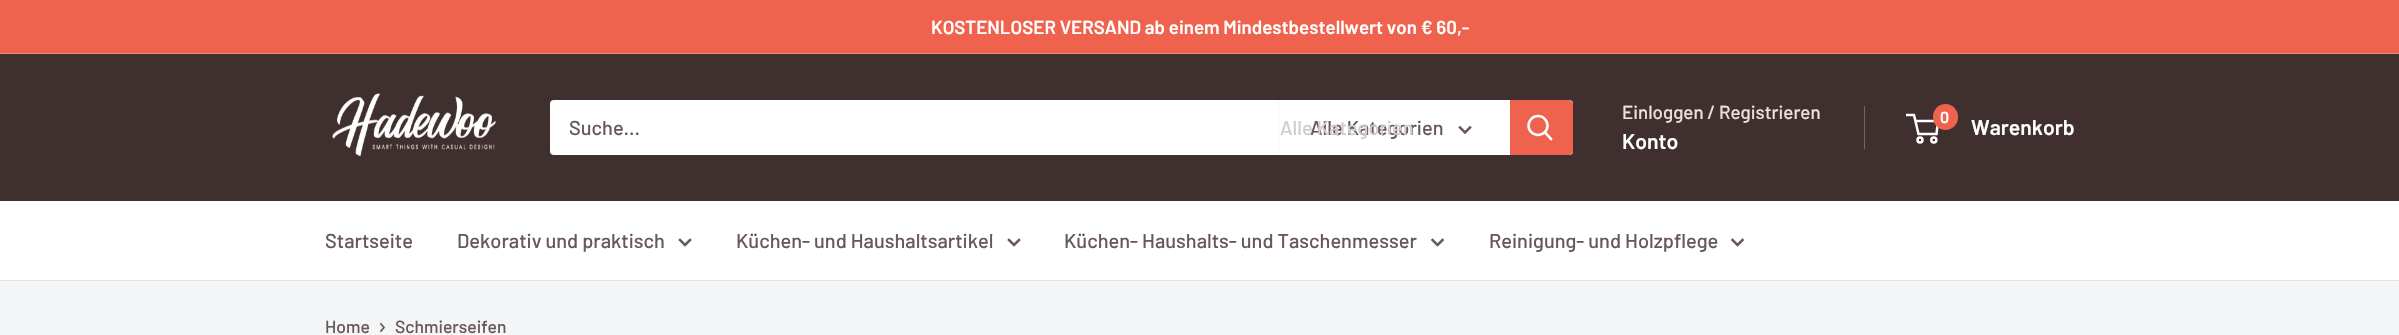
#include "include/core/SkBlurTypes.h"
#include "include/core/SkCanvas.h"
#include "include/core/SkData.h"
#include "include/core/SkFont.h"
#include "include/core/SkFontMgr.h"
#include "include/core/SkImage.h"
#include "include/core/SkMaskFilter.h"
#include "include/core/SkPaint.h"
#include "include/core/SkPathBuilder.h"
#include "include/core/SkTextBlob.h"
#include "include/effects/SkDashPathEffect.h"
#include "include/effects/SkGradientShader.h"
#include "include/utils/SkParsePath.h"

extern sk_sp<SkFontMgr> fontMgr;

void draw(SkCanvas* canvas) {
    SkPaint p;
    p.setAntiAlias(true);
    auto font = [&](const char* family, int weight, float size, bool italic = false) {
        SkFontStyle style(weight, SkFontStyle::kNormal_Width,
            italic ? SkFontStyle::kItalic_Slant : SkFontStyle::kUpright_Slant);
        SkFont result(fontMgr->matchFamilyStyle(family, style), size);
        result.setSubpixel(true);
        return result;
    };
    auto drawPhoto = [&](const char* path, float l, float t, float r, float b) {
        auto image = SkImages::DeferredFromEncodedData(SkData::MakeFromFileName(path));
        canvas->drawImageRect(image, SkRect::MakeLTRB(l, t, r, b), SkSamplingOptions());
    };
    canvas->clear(0xFFF3F5F6);
    p.setColor(0xFFEF634E);
    canvas->drawRect(SkRect::MakeLTRB(0, 0, 2399, 53), p);
    p.setColor(0xFFED8979);
    canvas->drawRect(SkRect::MakeLTRB(0, 53, 2399, 54), p);
    auto font1 = font("Barlow", 600, 18.75f);
    p.setColor(0xFFFFFFFF);
    canvas->drawString("KOSTENLOSER VERSAND ab einem Mindestbestellwert von € 60,-", 931, 34, font1, p);
    p.setColor(0xFF402F2F);
    canvas->drawRect(SkRect::MakeLTRB(0, 54, 2399, 201), p);
    drawPhoto("media/1.png", 332, 93, 496, 157);
    p.setColor(0xFFFFFFFF);
    canvas->drawRoundRect(SkRect::MakeLTRB(550, 100, 1573, 155), 4, 4, p);
    auto font2 = font("Barlow", 500, 20);
    p.setColor(0xFF685858);
    canvas->drawString("Suche...", 569, 135, font2, p);
    p.setColor(0xFFF8F6F5);
    canvas->drawRect(SkRect::MakeLTRB(1278, 100, 1279, 155), p);
    p.setColor(0xFF685858);
    canvas->drawString("Alle Kategorien", 1310, 135, font2, p);
    p.setColor(0xFFD2CECE);
    canvas->drawString("Alle Kategorien", 1280, 135, font2, p);
    p.setStyle(SkPaint::kStroke_Style);
    p.setStrokeWidth(2.5f);
    p.setStrokeCap(SkPaint::kSquare_Cap);
    p.setColor(0xFF685858);
    canvas->drawPath(SkPathBuilder().moveTo(1470, 127.5f).lineTo(1465, 132.5f).lineTo(1460, 127.5f).detach(), p);
    p.setStyle(SkPaint::kFill_Style);
    p.setColor(0xFFEF634E);
    canvas->drawPath(SkPathBuilder().moveTo(1510, 100).lineTo(1569, 100).cubicTo(1571, 100, 1573, 102, 1573, 104).lineTo(1573, 151).cubicTo(1573, 153, 1571, 155, 1569, 155).lineTo(1510, 155).close().detach(), p);
    p.setStyle(SkPaint::kStroke_Style);
    p.setColor(0xFFFFFFFF);
    canvas->drawPath(SkPathBuilder().moveTo(1551, 139).lineTo(1545, 132.5f).detach(), p);
    p.setStrokeCap(SkPaint::kButt_Cap);
    canvas->drawCircle(1538, 125.5f, 9.5f, p);
    auto font3 = font("Barlow", 500, 18.75f);
    p.setStyle(SkPaint::kFill_Style);
    p.setColor(0xFFE9E2DD);
    canvas->drawString("Einloggen / Registrieren", 1622, 119, font3, p);
    p.setColor(0xFF736563);
    canvas->drawRect(SkRect::MakeLTRB(1864, 106, 1865, 149), p);
    auto font4 = font("Barlow", 600, 21.25f);
    p.setColor(0xFFFFFFFF);
    canvas->drawString("Konto", 1622, 149, font4, p);
    p.setStyle(SkPaint::kStroke_Style);
    canvas->drawCircle(1920, 140, 2.5f, p);
    canvas->drawCircle(1933.8f, 140, 2.5f, p);
    canvas->drawPath(SkPathBuilder().moveTo(1915.5f, 121).lineTo(1938, 121).lineTo(1936.5f, 134).lineTo(1918.5f, 134).lineTo(1914, 115).lineTo(1906, 115).detach(), p);
    p.setStyle(SkPaint::kFill_Style);
    p.setColor(0xFFEF634E);
    canvas->drawRoundRect(SkRect::MakeLTRB(1933, 104, 1958, 130), 12.5f, 12.5f, p);
    auto font5 = font("Barlow", 600, 16);
    p.setColor(0xFFFFFFFF);
    canvas->drawString("0", 1940, 123, font5, p);
    canvas->drawString("Warenkorb", 1971, 135, font4, p);
    canvas->drawRect(SkRect::MakeLTRB(0, 201, 2399, 280), p);
    p.setColor(0xFFE1E3E4);
    canvas->drawRect(SkRect::MakeLTRB(0, 280, 2399, 281), p);
    p.setColor(0xFF685858);
    canvas->drawString("Startseite", 325, 248, font2, p);
    canvas->drawString("Dekorativ und praktisch", 457, 248, font2, p);
    p.setStyle(SkPaint::kStroke_Style);
    p.setStrokeCap(SkPaint::kSquare_Cap);
    canvas->drawPath(SkPathBuilder().moveTo(690, 240).lineTo(685, 245).lineTo(680, 240).detach(), p);
    p.setStyle(SkPaint::kFill_Style);
    canvas->drawString("Küchen- und Haushaltsartikel", 736, 248, font2, p);
    p.setStyle(SkPaint::kStroke_Style);
    canvas->drawPath(SkPathBuilder().moveTo(1019, 240).lineTo(1014, 245).lineTo(1009, 240).detach(), p);
    p.setStyle(SkPaint::kFill_Style);
    canvas->drawString("Küchen- Haushalts- und Taschenmesser", 1064, 248, font2, p);
    p.setStyle(SkPaint::kStroke_Style);
    canvas->drawPath(SkPathBuilder().moveTo(1442.5f, 240).lineTo(1437.5f, 245).lineTo(1432.5f, 240).detach(), p);
    p.setStyle(SkPaint::kFill_Style);
    canvas->drawString("Reinigung- und Holzpflege", 1489, 248, font2, p);
    p.setStyle(SkPaint::kStroke_Style);
    canvas->drawPath(SkPathBuilder().moveTo(1742.5f, 240).lineTo(1737.5f, 245).lineTo(1732.5f, 240).detach(), p);
    auto font6 = font("Barlow", 500, 17.5f);
    p.setStyle(SkPaint::kFill_Style);
    canvas->drawString("Home", 325, 333, font6, p);
    p.setStyle(SkPaint::kStroke_Style);
    p.setStrokeWidth(1.7f);
    canvas->drawPath(SkPathBuilder().moveTo(381, 324).lineTo(384, 327.5f).lineTo(381, 331).detach(), p);
    p.setStyle(SkPaint::kFill_Style);
    canvas->drawString("Schmierseifen", 395, 333, font6, p);
}
